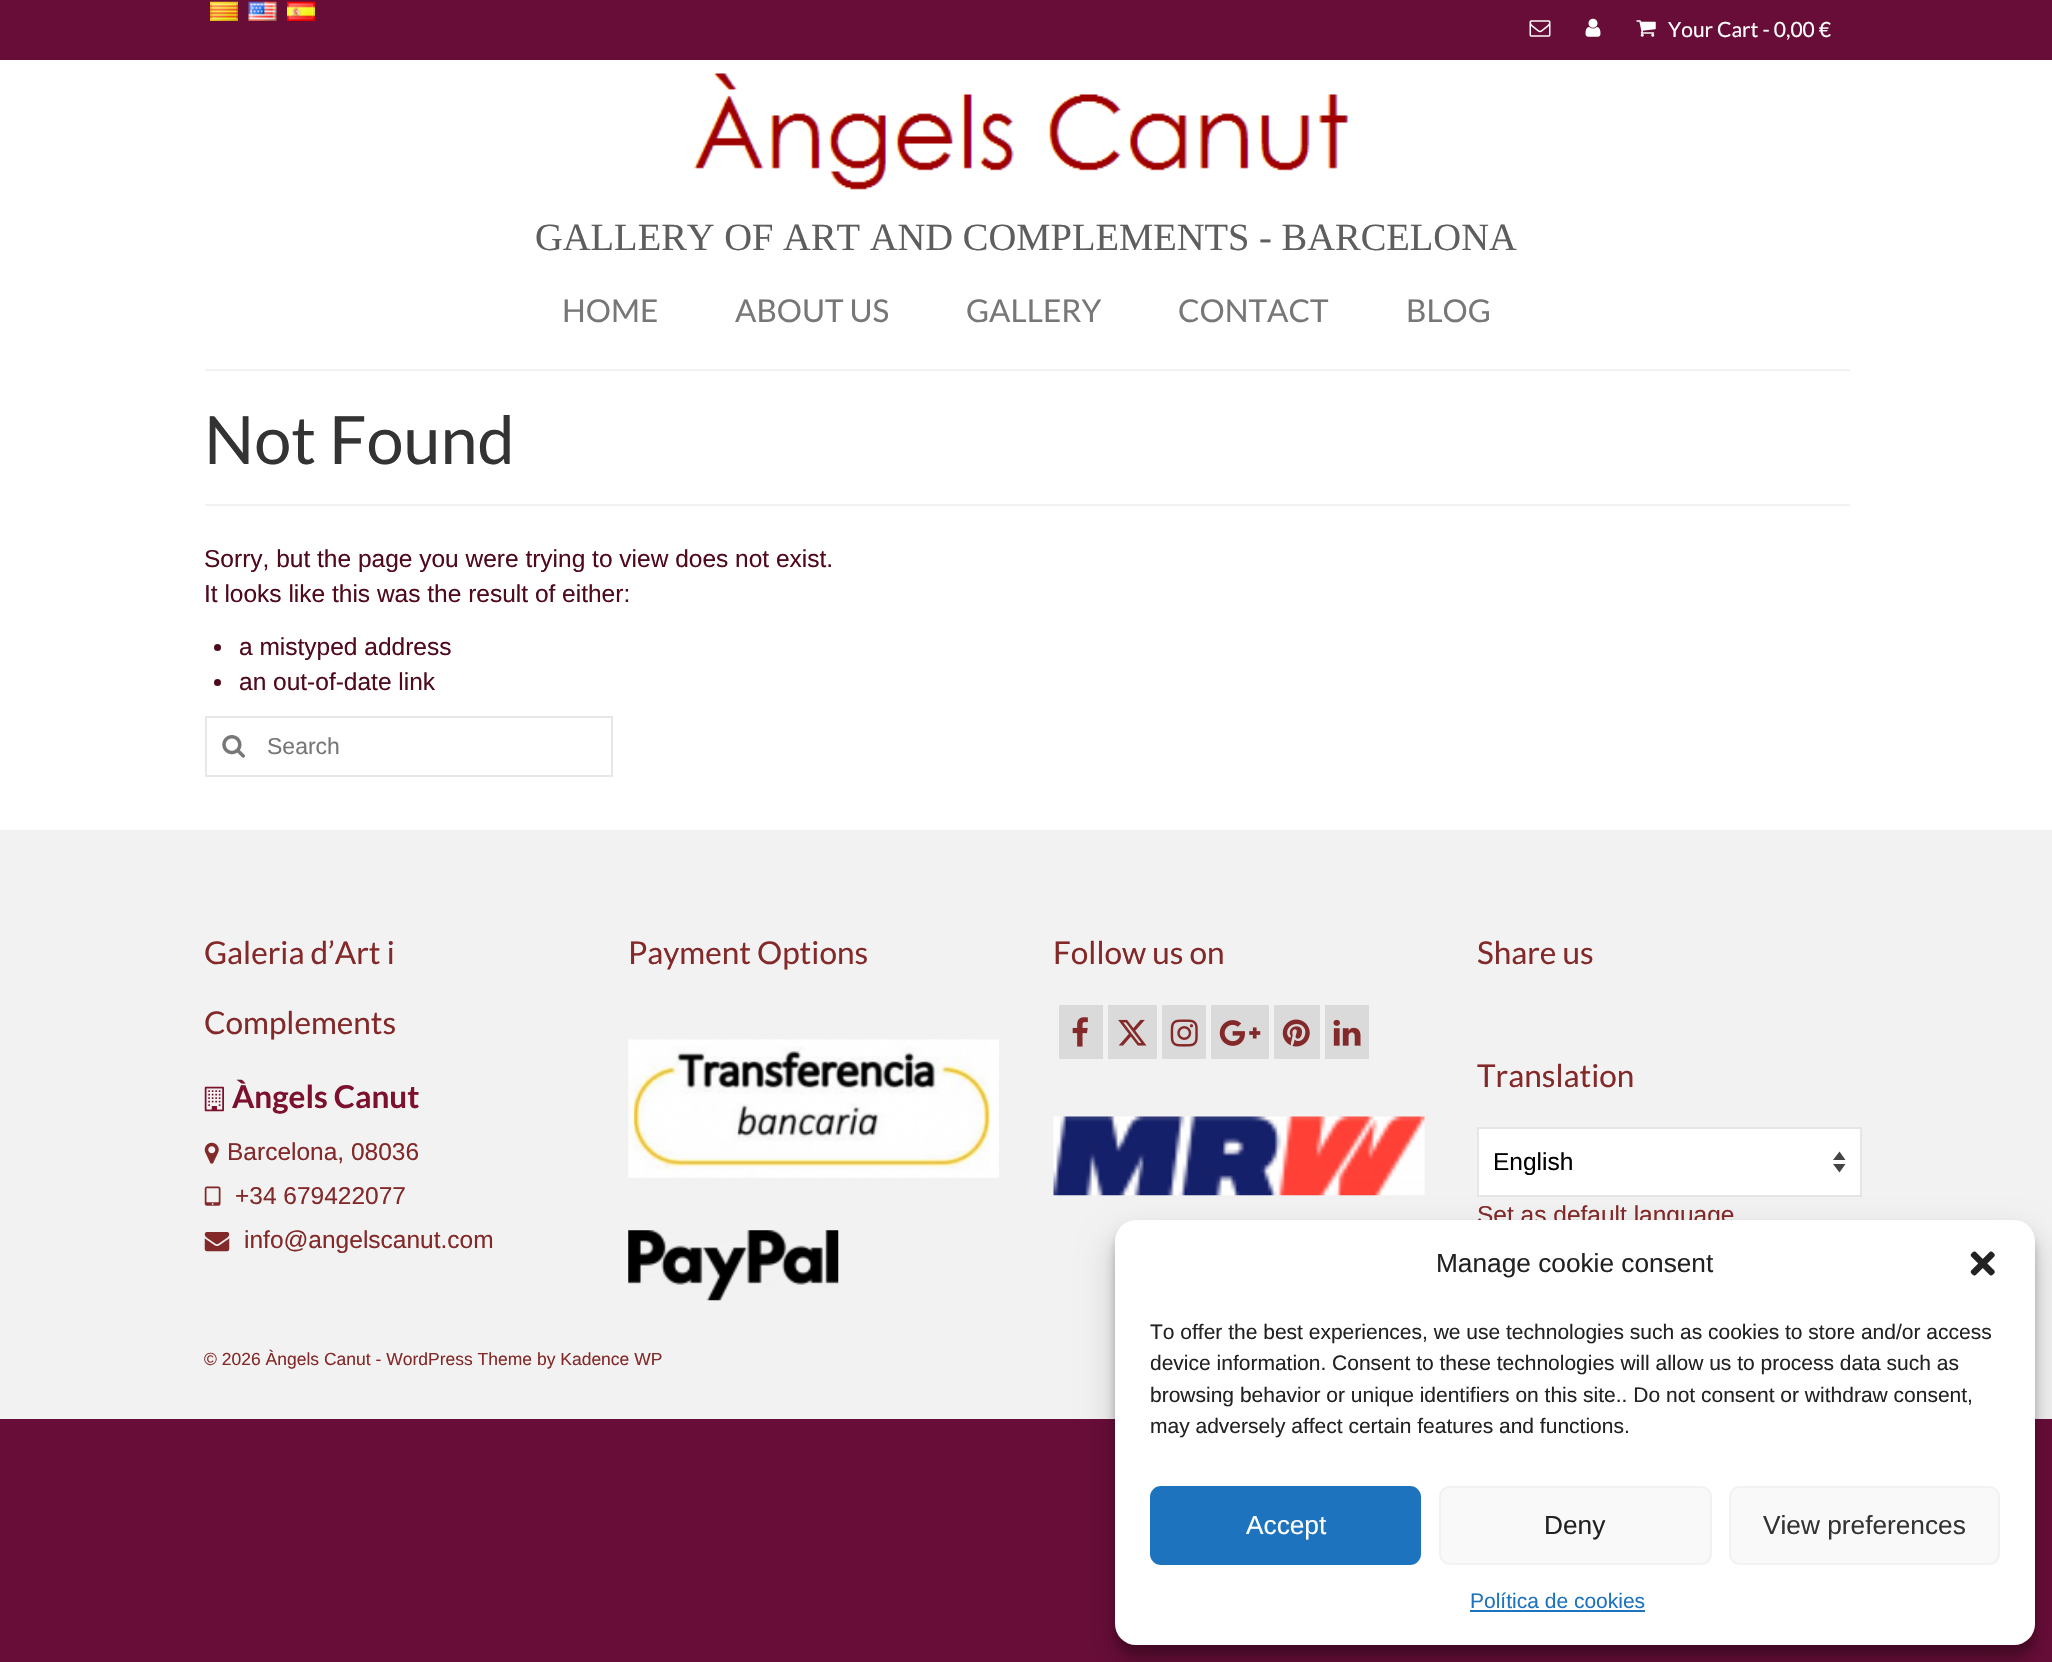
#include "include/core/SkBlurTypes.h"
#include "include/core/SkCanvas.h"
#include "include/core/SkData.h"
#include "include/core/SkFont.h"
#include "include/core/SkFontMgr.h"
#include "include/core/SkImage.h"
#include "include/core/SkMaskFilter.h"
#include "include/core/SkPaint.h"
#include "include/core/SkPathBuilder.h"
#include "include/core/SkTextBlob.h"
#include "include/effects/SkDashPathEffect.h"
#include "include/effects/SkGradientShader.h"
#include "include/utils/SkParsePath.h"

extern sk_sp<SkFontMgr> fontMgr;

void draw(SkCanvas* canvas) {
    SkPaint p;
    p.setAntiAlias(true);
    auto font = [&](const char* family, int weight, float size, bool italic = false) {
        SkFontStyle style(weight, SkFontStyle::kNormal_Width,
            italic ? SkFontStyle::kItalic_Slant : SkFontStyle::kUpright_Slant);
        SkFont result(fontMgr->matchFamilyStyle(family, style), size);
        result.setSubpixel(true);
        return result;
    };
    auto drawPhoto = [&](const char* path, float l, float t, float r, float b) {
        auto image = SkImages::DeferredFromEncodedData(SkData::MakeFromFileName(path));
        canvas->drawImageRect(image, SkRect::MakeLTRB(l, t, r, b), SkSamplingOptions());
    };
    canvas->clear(0xFF680D38);
    p.setColor(0xFFFFFFFF);
    canvas->drawRect(SkRect::MakeLTRB(0, 60, 2052, 830), p);
    drawPhoto("media/1.png", 210, 1, 238, 21);
    drawPhoto("media/2.png", 248, 1, 277, 21);
    drawPhoto("media/3.png", 287, 1, 315, 21);
    drawPhoto("media/4.png", 1529, 20, 1551, 37);
    drawPhoto("media/5.png", 1585, 18, 1601, 37);
    drawPhoto("media/6.png", 1636, 20, 1656, 37);
    auto font1 = font("Lato", 400, 21);
    canvas->drawString("Your Cart - 0,00 €", 1668, 37, font1, p);
    drawPhoto("media/7.png", 694, 73, 1350, 190);
    auto font2 = font("Liberation Serif", 400, 38.5f);
    p.setColor(0xFF5E5E5E);
    canvas->drawString("GALLERY OF ART AND COMPLEMENTS - BARCELONA", 535, 250, font2, p);
    auto font3 = font("Lato", 400, 31.5f);
    p.setColor(0xFF777777);
    {
        const struct { const char* s; float x, y; } items[] = {
            {"HOME", 562, 322},
            {"ABOUT US", 735, 322},
            {"GALLERY", 966, 322},
            {"CONTACT", 1178, 322},
            {"BLOG", 1406, 322},
        };
        for (auto [s, x, y] : items) {
            canvas->drawString(s, x, y, font3, p);
        }
    }
    p.setColor(0xFFF2F2F2);
    canvas->drawRect(SkRect::MakeLTRB(205, 369, 1850, 371), p);
    canvas->drawRect(SkRect::MakeLTRB(205, 504, 1850, 506), p);
    auto font4 = font("Lato", 400, 66.5f);
    p.setColor(0xFF333333);
    canvas->drawString("Not Found", 204, 464, font4, p);
    auto font5 = font("Liberation Sans", 400, 24.5f);
    p.setColor(0xFF4F0A1C);
    canvas->drawString("Sorry, but the page you were trying to view does not exist.", 204, 567, font5, p);
    canvas->drawString("It looks like this was the result of either:", 204, 602, font5, p);
    canvas->drawCircle(217.5f, 647.5f, 3.5f, p);
    canvas->drawString("a mistyped address", 239, 655, font5, p);
    canvas->drawCircle(217.5f, 682.5f, 3.5f, p);
    canvas->drawString("an out-of-date link", 239, 690, font5, p);
    p.setStyle(SkPaint::kStroke_Style);
    p.setStrokeWidth(2);
    p.setColor(0xFFE7E7E7);
    canvas->drawRect(SkRect::MakeLTRB(206, 717, 612, 776), p);
    drawPhoto("media/8.png", 222, 735, 245, 758);
    auto font6 = font("Liberation Sans", 400, 23);
    p.setStyle(SkPaint::kFill_Style);
    p.setColor(0xFF777777);
    canvas->drawString("Search", 267, 754, font6, p);
    p.setColor(0xFFF2F2F2);
    canvas->drawRect(SkRect::MakeLTRB(0, 830, 2052, 1419), p);
    p.setColor(0xFF842929);
    canvas->drawString("Galeria d’Art i", 204, 964, font3, p);
    canvas->drawString("Complements", 204, 1034, font3, p);
    drawPhoto("media/9.png", 204, 1086, 224, 1112);
    auto font7 = font("Lato", 700, 31.5f);
    p.setColor(0xFF7C102D);
    canvas->drawString("Àngels Canut", 232, 1108, font7, p);
    drawPhoto("media/10.png", 204, 1142, 219, 1164);
    p.setColor(0xFF842929);
    canvas->drawString("Barcelona, 08036", 227, 1160, font5, p);
    drawPhoto("media/11.png", 204, 1186, 221, 1206);
    canvas->drawString("+34 679422077", 235, 1204, font5, p);
    drawPhoto("media/12.png", 204, 1232, 230, 1252);
    canvas->drawString("info@angelscanut.com", 244, 1248, font5, p);
    canvas->drawString("Payment Options", 628, 964, font3, p);
    drawPhoto("media/13.png", 628, 1039, 999, 1178);
    drawPhoto("media/14.png", 628, 1230, 839, 1301);
    canvas->drawString("Follow us on", 1053, 964, font3, p);
    p.setColor(0xFFDADADA);
    canvas->drawRect(SkRect::MakeLTRB(1059, 1005, 1103, 1059), p);
    drawPhoto("media/15.png", 1072, 1017, 1088, 1047);
    canvas->drawRect(SkRect::MakeLTRB(1108, 1005, 1157, 1059), p);
    drawPhoto("media/16.png", 1118, 1019, 1147, 1046);
    canvas->drawRect(SkRect::MakeLTRB(1162, 1005, 1206, 1059), p);
    drawPhoto("media/17.png", 1170, 1019, 1198, 1047);
    canvas->drawRect(SkRect::MakeLTRB(1211, 1005, 1269, 1059), p);
    drawPhoto("media/18.png", 1219, 1020, 1261, 1046);
    canvas->drawRect(SkRect::MakeLTRB(1274, 1005, 1320, 1059), p);
    drawPhoto("media/19.png", 1282, 1019, 1310, 1047);
    canvas->drawRect(SkRect::MakeLTRB(1325, 1005, 1369, 1059), p);
    drawPhoto("media/20.png", 1333, 1019, 1361, 1046);
    drawPhoto("media/21.png", 1053, 1116, 1425, 1196);
    p.setColor(0xFF842929);
    canvas->drawString("Share us", 1477, 964, font3, p);
    canvas->drawString("Translation", 1477, 1087, font3, p);
    p.setColor(0xFFFFFFFF);
    canvas->drawRect(SkRect::MakeLTRB(1479, 1129, 1860, 1195), p);
    p.setColor(0xFF444444);
    canvas->drawPath(SkPathBuilder().moveTo(1833, 1160).lineTo(1839.5f, 1151.5f).lineTo(1845.5f, 1160).close().moveTo(1845.5f, 1164).lineTo(1839.5f, 1172.5f).lineTo(1833, 1164).close().detach(), p);
    p.setStyle(SkPaint::kStroke_Style);
    p.setColor(0xFFE6E6E6);
    canvas->drawRect(SkRect::MakeLTRB(1478, 1128, 1861, 1196), p);
    p.setStyle(SkPaint::kFill_Style);
    p.setColor(0xFF000000);
    canvas->drawString("English", 1493, 1170, font5, p);
    p.setColor(0xFF842929);
    canvas->drawString("Set as default language", 1477, 1223, font5, p);
    auto font8 = font("Liberation Sans", 400, 17.5f);
    canvas->drawString("© 2026 Àngels Canut - WordPress Theme by Kadence WP", 204, 1365, font8, p);
    p.setColor(0x3B000000);
    p.setMaskFilter(SkMaskFilter::MakeBlur(kNormal_SkBlurStyle, 5));
    canvas->drawRoundRect(SkRect::MakeLTRB(1115, 1230, 2035, 1656), 21, 21, p);
    p.setMaskFilter(nullptr);
    p.setColor(0x30000000);
    p.setMaskFilter(SkMaskFilter::MakeBlur(kNormal_SkBlurStyle, 17.5f));
    canvas->drawRoundRect(SkRect::MakeLTRB(1115, 1237, 2035, 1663), 21, 21, p);
    p.setMaskFilter(nullptr);
    p.setColor(0xFFFFFFFF);
    canvas->drawRoundRect(SkRect::MakeLTRB(1115, 1220, 2035, 1645), 21, 21, p);
    auto font9 = font("Liberation Sans", 400, 26.25f);
    p.setColor(0xFF222222);
    canvas->drawString("Manage cookie consent", 1436, 1272, font9, p);
    drawPhoto("media/22.png", 1970, 1251, 1995, 1276);
    auto font10 = font("Liberation Sans", 400, 21);
    {
        const struct { const char* s; float x, y; } items[] = {
            {"To offer the best experiences, we use technologies such as cookies to store and/or access", 1150, 1339},
            {"device information. Consent to these technologies will allow us to process data such as", 1150, 1370},
            {"browsing behavior or unique identifiers on this site.. Do not consent or withdraw consent,", 1150, 1402},
            {"may adversely affect certain features and functions.", 1150, 1433},
        };
        for (auto [s, x, y] : items) {
            canvas->drawString(s, x, y, font10, p);
        }
    }
    p.setColor(0xFF1E73BE);
    canvas->drawRoundRect(SkRect::MakeLTRB(1151, 1487, 1420, 1564), 10, 10, p);
    p.setStyle(SkPaint::kStroke_Style);
    canvas->drawRoundRect(SkRect::MakeLTRB(1151, 1487, 1420, 1564), 10, 10, p);
    p.setStyle(SkPaint::kFill_Style);
    p.setColor(0xFFFFFFFF);
    canvas->drawString("Accept", 1246, 1534, font9, p);
    p.setColor(0xFFF9F9F9);
    canvas->drawRoundRect(SkRect::MakeLTRB(1440, 1487, 1711, 1564), 10, 10, p);
    p.setStyle(SkPaint::kStroke_Style);
    p.setColor(0xFFF2F2F2);
    canvas->drawRoundRect(SkRect::MakeLTRB(1440, 1487, 1711, 1564), 10, 10, p);
    p.setStyle(SkPaint::kFill_Style);
    p.setColor(0xFF222222);
    canvas->drawString("Deny", 1544, 1534, font9, p);
    p.setColor(0xFFF9F9F9);
    canvas->drawRoundRect(SkRect::MakeLTRB(1730, 1487, 1999, 1564), 10, 10, p);
    p.setStyle(SkPaint::kStroke_Style);
    p.setColor(0xFFF2F2F2);
    canvas->drawRoundRect(SkRect::MakeLTRB(1730, 1487, 1999, 1564), 10, 10, p);
    p.setStyle(SkPaint::kFill_Style);
    p.setColor(0xFF333333);
    canvas->drawString("View preferences", 1763, 1534, font9, p);
    p.setColor(0xFF1E73BE);
    canvas->drawString("Política de cookies", 1470, 1608, font10, p);
    canvas->drawRect(SkRect::MakeLTRB(1470, 1610, 1645, 1612), p);
}
